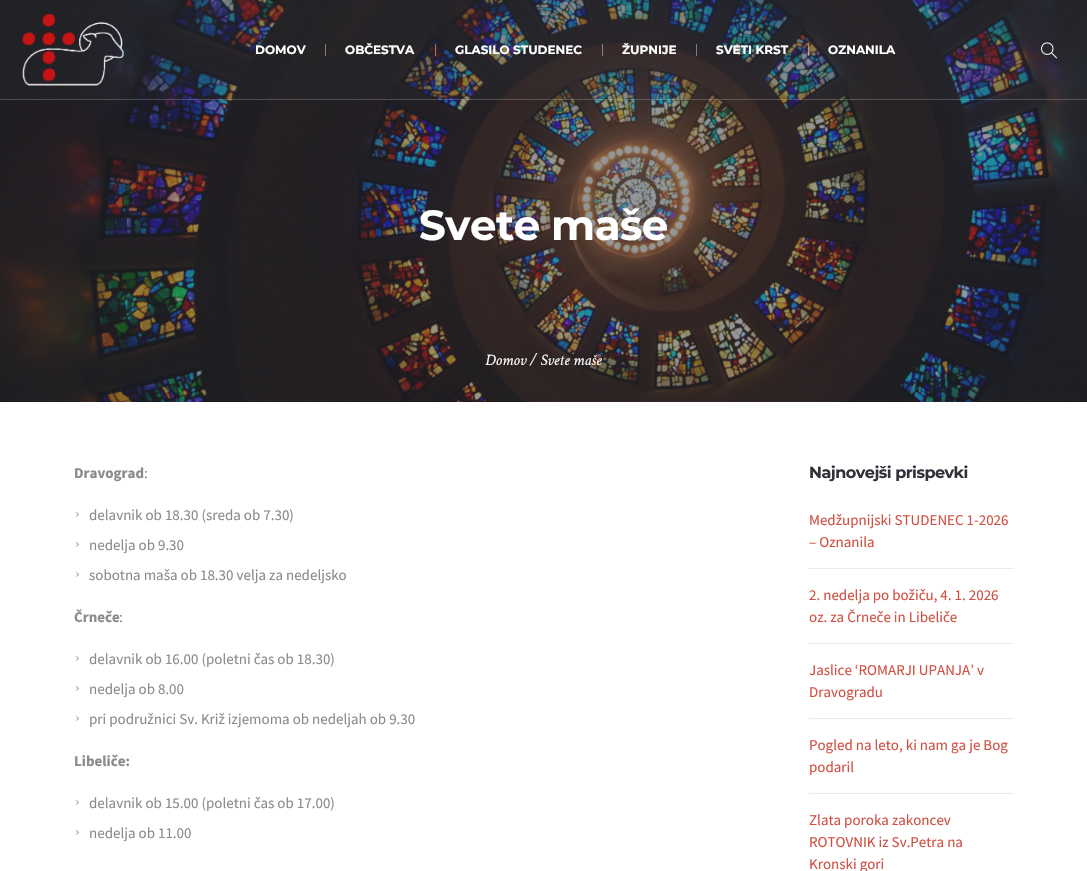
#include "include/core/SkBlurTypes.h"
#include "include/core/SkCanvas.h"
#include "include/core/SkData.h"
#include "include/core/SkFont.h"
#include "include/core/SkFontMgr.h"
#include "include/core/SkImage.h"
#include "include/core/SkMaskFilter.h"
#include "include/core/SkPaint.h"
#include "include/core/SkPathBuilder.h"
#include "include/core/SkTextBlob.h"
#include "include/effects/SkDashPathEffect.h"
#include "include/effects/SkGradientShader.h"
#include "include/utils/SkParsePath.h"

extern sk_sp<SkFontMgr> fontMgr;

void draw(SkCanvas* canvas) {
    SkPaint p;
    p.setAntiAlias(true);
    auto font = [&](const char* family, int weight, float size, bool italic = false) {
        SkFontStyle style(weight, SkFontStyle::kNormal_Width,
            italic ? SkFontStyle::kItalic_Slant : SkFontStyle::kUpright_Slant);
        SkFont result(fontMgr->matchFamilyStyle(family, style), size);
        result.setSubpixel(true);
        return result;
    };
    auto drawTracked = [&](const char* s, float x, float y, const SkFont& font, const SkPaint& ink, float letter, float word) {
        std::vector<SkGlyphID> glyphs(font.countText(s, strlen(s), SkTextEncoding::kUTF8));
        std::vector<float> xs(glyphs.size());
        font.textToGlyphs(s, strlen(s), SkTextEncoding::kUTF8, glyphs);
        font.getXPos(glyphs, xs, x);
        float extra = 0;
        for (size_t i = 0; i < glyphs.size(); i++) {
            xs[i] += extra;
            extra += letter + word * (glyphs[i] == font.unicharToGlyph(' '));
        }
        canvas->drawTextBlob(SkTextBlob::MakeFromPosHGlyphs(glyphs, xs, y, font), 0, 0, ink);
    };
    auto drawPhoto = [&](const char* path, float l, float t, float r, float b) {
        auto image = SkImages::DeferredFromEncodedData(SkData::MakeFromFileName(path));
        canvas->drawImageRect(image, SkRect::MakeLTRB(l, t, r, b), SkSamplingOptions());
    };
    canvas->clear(0xFFFFFFFF);
    drawPhoto("media/3.png", 0, 0, 1087, 402);
    p.setColor(0x2631333B);
    canvas->drawRect(SkRect::MakeLTRB(0, 0, 1087, 100), p);
    p.setColor(0x33FFFFFF);
    canvas->drawRect(SkRect::MakeLTRB(0, 99, 1087, 100), p);
    drawPhoto("media/1.png", 22, 13, 124, 86);
    auto font1 = font("Montserrat", 700, 12);
    p.setColor(0xFFFFFFFF);
    canvas->drawString("DOMOV", 255, 54, font1, p);
    p.setColor(0xFF7D7B7D);
    canvas->drawRect(SkRect::MakeLTRB(325, 44, 326, 56), p);
    p.setColor(0xFFFFFFFF);
    canvas->drawString("OBČESTVA", 345, 54, font1, p);
    p.setColor(0x66FFFFFF);
    canvas->drawRect(SkRect::MakeLTRB(435, 44, 436, 56), p);
    p.setColor(0xFFFFFFFF);
    canvas->drawString("GLASILO STUDENEC", 455, 54, font1, p);
    p.setColor(0x66FFFFFF);
    canvas->drawRect(SkRect::MakeLTRB(602, 44, 603, 56), p);
    p.setColor(0xFFFFFFFF);
    canvas->drawString("ŽUPNIJE", 622, 54, font1, p);
    p.setColor(0x66FFFFFF);
    canvas->drawRect(SkRect::MakeLTRB(696, 44, 697, 56), p);
    p.setColor(0xFFFFFFFF);
    canvas->drawString("SVETI KRST", 716, 54, font1, p);
    p.setColor(0x66FFFFFF);
    canvas->drawRect(SkRect::MakeLTRB(808, 44, 809, 56), p);
    p.setColor(0xFFFFFFFF);
    canvas->drawString("OZNANILA", 828, 54, font1, p);
    drawPhoto("media/2.png", 1041, 42, 1057, 59);
    auto font2 = font("Montserrat", 700, 42);
    drawTracked("Svete maše", 419, 240, font2, p, -0.5f, 0);
    auto font3 = font("Crimson Text", 400, 16, true);
    canvas->drawString("Domov / Svete maše", 485, 365, font3, p);
    auto font4 = font("Source Sans Pro", 700, 15);
    p.setColor(0xFF8B8B8B);
    canvas->drawString("Dravograd", 74, 478, font4, p);
    auto font5 = font("Source Sans Pro", 400, 15);
    canvas->drawString(":", 144, 478, font5, p);
    drawPhoto("media/4.png", 76, 512, 79, 517);
    canvas->drawString("delavnik ob 18.30 (sreda ob 7.30)", 89, 520, font5, p);
    drawPhoto("media/4.png", 76, 542, 79, 547);
    canvas->drawString("nedelja ob 9.30", 89, 550, font5, p);
    drawPhoto("media/4.png", 76, 572, 79, 577);
    canvas->drawString("sobotna maša ob 18.30 velja za nedeljsko", 89, 580, font5, p);
    canvas->drawString("Črneče", 74, 622, font4, p);
    canvas->drawString(":", 119, 622, font5, p);
    drawPhoto("media/4.png", 76, 656, 79, 661);
    canvas->drawString("delavnik ob 16.00 (poletni čas ob 18.30)", 89, 664, font5, p);
    drawPhoto("media/4.png", 76, 686, 79, 691);
    canvas->drawString("nedelja ob 8.00", 89, 694, font5, p);
    drawPhoto("media/4.png", 76, 716, 79, 721);
    canvas->drawString("pri podružnici Sv. Križ izjemoma ob nedeljah ob 9.30", 89, 724, font5, p);
    canvas->drawString("Libeliče:", 74, 766, font4, p);
    drawPhoto("media/4.png", 76, 800, 79, 805);
    canvas->drawString("delavnik ob 15.00 (poletni čas ob 17.00)", 89, 808, font5, p);
    drawPhoto("media/4.png", 76, 830, 79, 835);
    canvas->drawString("nedelja ob 11.00", 89, 838, font5, p);
    auto font6 = font("Montserrat", 700, 16);
    p.setColor(0xFF31333B);
    drawTracked("Najnovejši prispevki", 809, 478, font6, p, -0.5f, 0);
    p.setColor(0xFFD14F42);
    canvas->drawString("Medžupnijski STUDENEC 1-2026", 809, 525, font5, p);
    canvas->drawString("– Oznanila", 809, 547, font5, p);
    p.setColor(0xFFEAEAEA);
    canvas->drawRect(SkRect::MakeLTRB(809, 568, 1014, 569), p);
    p.setColor(0xFFD14F42);
    canvas->drawString("2. nedelja po božiču, 4. 1. 2026", 809, 600, font5, p);
    canvas->drawString("oz. za Črneče in Libeliče", 809, 622, font5, p);
    p.setColor(0xFFEAEAEA);
    canvas->drawRect(SkRect::MakeLTRB(809, 643, 1014, 644), p);
    p.setColor(0xFFD14F42);
    canvas->drawString("Jaslice ‘ROMARJI UPANJA’ v", 809, 675, font5, p);
    canvas->drawString("Dravogradu", 809, 697, font5, p);
    p.setColor(0xFFEAEAEA);
    canvas->drawRect(SkRect::MakeLTRB(809, 718, 1014, 719), p);
    p.setColor(0xFFD14F42);
    canvas->drawString("Pogled na leto, ki nam ga je Bog", 809, 750, font5, p);
    canvas->drawString("podaril", 809, 772, font5, p);
    p.setColor(0xFFEAEAEA);
    canvas->drawRect(SkRect::MakeLTRB(809, 793, 1014, 794), p);
    p.setColor(0xFFD14F42);
    {
        const struct { const char* s; float x, y; } items[] = {
            {"Zlata poroka zakoncev", 809, 825},
            {"ROTOVNIK iz Sv.Petra na", 809, 847},
            {"Kronski gori", 809, 869},
        };
        for (auto [s, x, y] : items) {
            canvas->drawString(s, x, y, font5, p);
        }
    }
}
